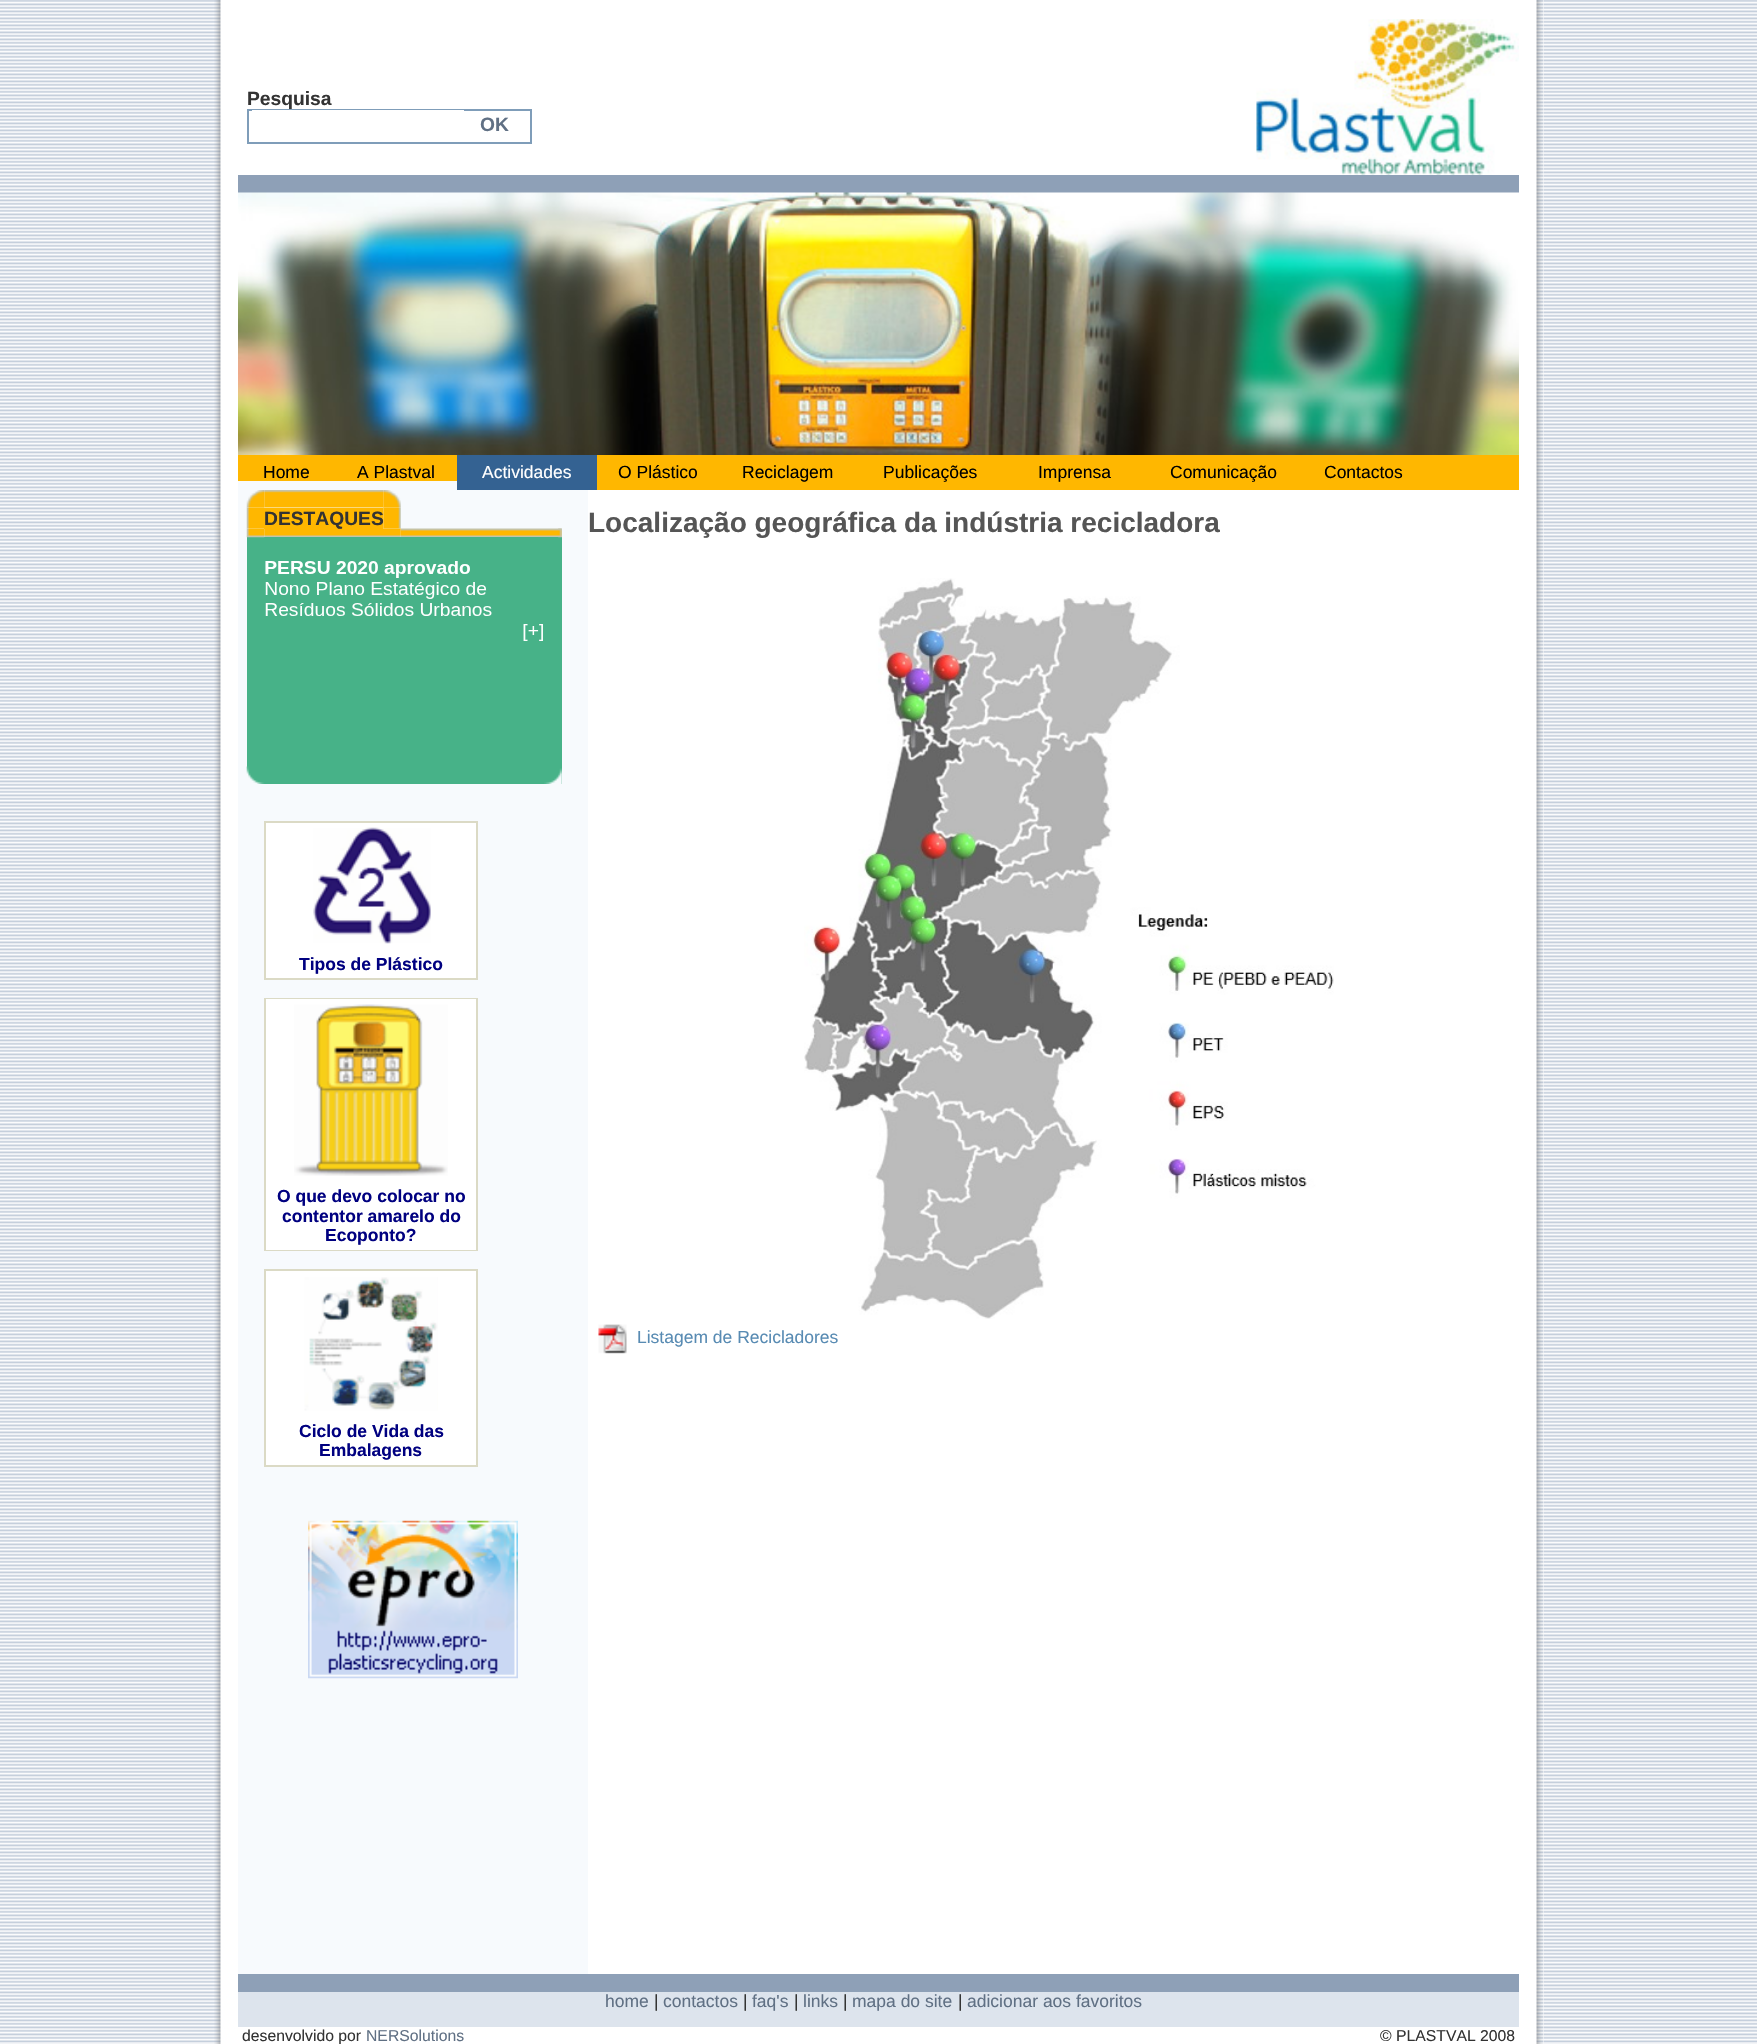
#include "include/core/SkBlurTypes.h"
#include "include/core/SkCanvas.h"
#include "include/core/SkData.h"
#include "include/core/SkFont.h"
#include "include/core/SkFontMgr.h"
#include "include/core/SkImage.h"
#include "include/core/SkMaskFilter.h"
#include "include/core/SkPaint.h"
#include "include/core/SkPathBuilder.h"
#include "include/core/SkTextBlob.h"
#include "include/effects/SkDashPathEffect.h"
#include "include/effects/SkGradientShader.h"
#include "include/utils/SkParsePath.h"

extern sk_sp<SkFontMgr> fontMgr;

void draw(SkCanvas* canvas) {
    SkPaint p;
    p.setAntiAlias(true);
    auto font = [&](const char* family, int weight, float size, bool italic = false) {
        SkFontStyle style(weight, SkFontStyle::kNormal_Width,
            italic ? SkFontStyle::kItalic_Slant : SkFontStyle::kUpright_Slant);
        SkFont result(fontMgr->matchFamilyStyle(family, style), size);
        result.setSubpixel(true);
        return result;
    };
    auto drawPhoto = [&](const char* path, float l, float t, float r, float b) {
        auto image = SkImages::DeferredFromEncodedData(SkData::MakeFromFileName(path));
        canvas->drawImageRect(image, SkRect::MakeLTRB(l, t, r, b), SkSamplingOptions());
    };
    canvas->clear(0xFFFFFFFF);
    drawPhoto("media/1.png", 0, 0, 1757, 2044);
    p.setColor(0xFFFFFFFF);
    canvas->drawRect(SkRect::MakeLTRB(1543, 0, 1544, 2044), p);
    drawPhoto("media/2.png", 214, 0, 1544, 2044);
    auto font1 = font("Liberation Sans", 700, 19.25f);
    p.setColor(0xFF333333);
    canvas->drawString("Pesquisa", 247, 105, font1, p);
    p.setStyle(SkPaint::kStroke_Style);
    p.setStrokeWidth(2);
    p.setColor(0xFF7F9DB9);
    canvas->drawRect(SkRect::MakeLTRB(248, 110, 531, 143), p);
    p.setStyle(SkPaint::kFill_Style);
    p.setColor(0xFFFFFFFF);
    canvas->drawRect(SkRect::MakeLTRB(252, 110, 464, 111), p);
    p.setColor(0xFF607084);
    canvas->drawString("OK", 480, 131, font1, p);
    drawPhoto("media/3.png", 1256, 19, 1519, 175);
    p.setColor(0xFF8EA0B7);
    canvas->drawRect(SkRect::MakeLTRB(238, 175, 1519, 193), p);
    drawPhoto("media/4.png", 238, 192, 1519, 455);
    p.setColor(0xFFFFB700);
    canvas->drawRect(SkRect::MakeLTRB(238, 455, 1519, 490), p);
    auto font2 = font("Liberation Sans", 400, 17.5f);
    p.setColor(0xFF000000);
    canvas->drawString("Home", 263, 478, font2, p);
    canvas->drawString("A Plastval", 357, 478, font2, p);
    p.setColor(0xFFF7FAFD);
    canvas->drawRect(SkRect::MakeLTRB(238, 481, 588, 1974), p);
    p.setColor(0xFF346292);
    canvas->drawRect(SkRect::MakeLTRB(457, 455, 597, 490), p);
    p.setColor(0xFFFFFFFF);
    canvas->drawString("Actividades", 482, 478, font2, p);
    p.setColor(0xFF000000);
    {
        const struct { const char* s; float x, y; } items[] = {
            {"O Plástico", 618, 478},
            {"Reciclagem", 742, 478},
            {"Publicações", 883, 478},
            {"Imprensa", 1038, 478},
            {"Comunicação", 1170, 478},
            {"Contactos", 1324, 478},
        };
        for (auto [s, x, y] : items) {
            canvas->drawString(s, x, y, font2, p);
        }
    }
    drawPhoto("media/6.png", 264, 490, 384, 508);
    drawPhoto("media/8.png", 246, 507, 265, 529);
    drawPhoto("media/5.png", 246, 490, 265, 508);
    drawPhoto("media/9.png", 383, 507, 401, 529);
    drawPhoto("media/7.png", 383, 490, 401, 508);
    p.setColor(0xFFFFB700);
    canvas->drawRect(SkRect::MakeLTRB(264, 508, 383, 529), p);
    drawPhoto("media/11.png", 264, 528, 401, 537);
    p.setColor(0xFF333333);
    canvas->drawString("DESTAQUES", 264, 525, font1, p);
    p.setColor(0xFF47B288);
    canvas->drawRect(SkRect::MakeLTRB(247, 537, 562, 767), p);
    drawPhoto("media/10.png", 246, 528, 265, 538);
    drawPhoto("media/12.png", 400, 528, 562, 537);
    drawPhoto("media/13.png", 558, 528, 562, 538);
    drawPhoto("media/14.png", 265, 561, 543, 641);
    canvas->drawRect(SkRect::MakeLTRB(264, 767, 562, 784), p);
    drawPhoto("media/15.png", 246, 766, 265, 784);
    drawPhoto("media/16.png", 544, 768, 562, 784);
    p.setStyle(SkPaint::kStroke_Style);
    p.setColor(0xFFDBDAC5);
    canvas->drawRect(SkRect::MakeLTRB(265, 822, 477, 979), p);
    p.setStyle(SkPaint::kFill_Style);
    p.setColor(0xFFFFFFFF);
    canvas->drawRect(SkRect::MakeLTRB(266, 823, 476, 978), p);
    drawPhoto("media/17.png", 313, 827, 431, 944);
    auto font3 = font("Liberation Sans", 700, 17.5f);
    p.setColor(0xFF000080);
    canvas->drawString("Tipos de Plástico", 299, 970, font3, p);
    p.setStyle(SkPaint::kStroke_Style);
    p.setColor(0xFFDBDAC5);
    canvas->drawRect(SkRect::MakeLTRB(265, 999, 477, 1250), p);
    p.setStyle(SkPaint::kFill_Style);
    p.setColor(0xFFFFFFFF);
    canvas->drawRect(SkRect::MakeLTRB(266, 999, 476, 1250), p);
    drawPhoto("media/18.png", 294, 1004, 448, 1176);
    p.setColor(0xFF000080);
    {
        const struct { const char* s; float x, y; } items[] = {
            {"O que devo colocar no", 277, 1202},
            {"contentor amarelo do", 282, 1222},
            {"Ecoponto?", 325, 1241},
        };
        for (auto [s, x, y] : items) {
            canvas->drawString(s, x, y, font3, p);
        }
    }
    p.setStyle(SkPaint::kStroke_Style);
    p.setColor(0xFFDBDAC5);
    canvas->drawRect(SkRect::MakeLTRB(265, 1270, 477, 1466), p);
    p.setStyle(SkPaint::kFill_Style);
    p.setColor(0xFFFFFFFF);
    canvas->drawRect(SkRect::MakeLTRB(266, 1271, 476, 1465), p);
    drawPhoto("media/19.png", 304, 1277, 438, 1411);
    p.setColor(0xFF000080);
    canvas->drawString("Ciclo de Vida das", 299, 1437, font3, p);
    canvas->drawString("Embalagens", 319, 1456, font3, p);
    drawPhoto("media/20.png", 308, 1520, 518, 1679);
    auto font4 = font("Liberation Sans", 700, 28);
    p.setColor(0xFF555555);
    canvas->drawString("Localização geográfica da indústria recicladora", 588, 532, font4, p);
    drawPhoto("media/21.png", 804, 578, 1334, 1319);
    drawPhoto("media/22.png", 598, 1324, 627, 1354);
    p.setColor(0xFF588BB3);
    canvas->drawString("Listagem de Recicladores", 637, 1343, font2, p);
    p.setColor(0xFF8EA0B7);
    canvas->drawRect(SkRect::MakeLTRB(238, 1974, 1519, 1992), p);
    p.setColor(0xFFDDE4ED);
    canvas->drawRect(SkRect::MakeLTRB(238, 1992, 1519, 2027), p);
    p.setColor(0xFF607084);
    canvas->drawString("home", 605, 2007, font2, p);
    p.setColor(0xFF333333);
    canvas->drawString("|", 654, 2007, font2, p);
    p.setColor(0xFF607084);
    canvas->drawString("contactos", 663, 2007, font2, p);
    p.setColor(0xFF333333);
    canvas->drawString("|", 743, 2007, font2, p);
    p.setColor(0xFF607084);
    canvas->drawString("faq's", 752, 2007, font2, p);
    p.setColor(0xFF333333);
    canvas->drawString("|", 794, 2007, font2, p);
    p.setColor(0xFF607084);
    canvas->drawString("links", 803, 2007, font2, p);
    p.setColor(0xFF333333);
    canvas->drawString("|", 843, 2007, font2, p);
    p.setColor(0xFF607084);
    canvas->drawString("mapa do site", 852, 2007, font2, p);
    p.setColor(0xFF333333);
    canvas->drawString("|", 958, 2007, font2, p);
    p.setColor(0xFF607084);
    canvas->drawString("adicionar aos favoritos", 967, 2007, font2, p);
    auto font5 = font("Liberation Sans", 400, 15.75f);
    p.setColor(0xFF333333);
    canvas->drawString("desenvolvido por", 242, 2041, font5, p);
    p.setColor(0xFF607084);
    canvas->drawString("NERSolutions", 366, 2041, font5, p);
    p.setColor(0xFF333333);
    canvas->drawString("© PLASTVAL 2008", 1380, 2041, font5, p);
}
